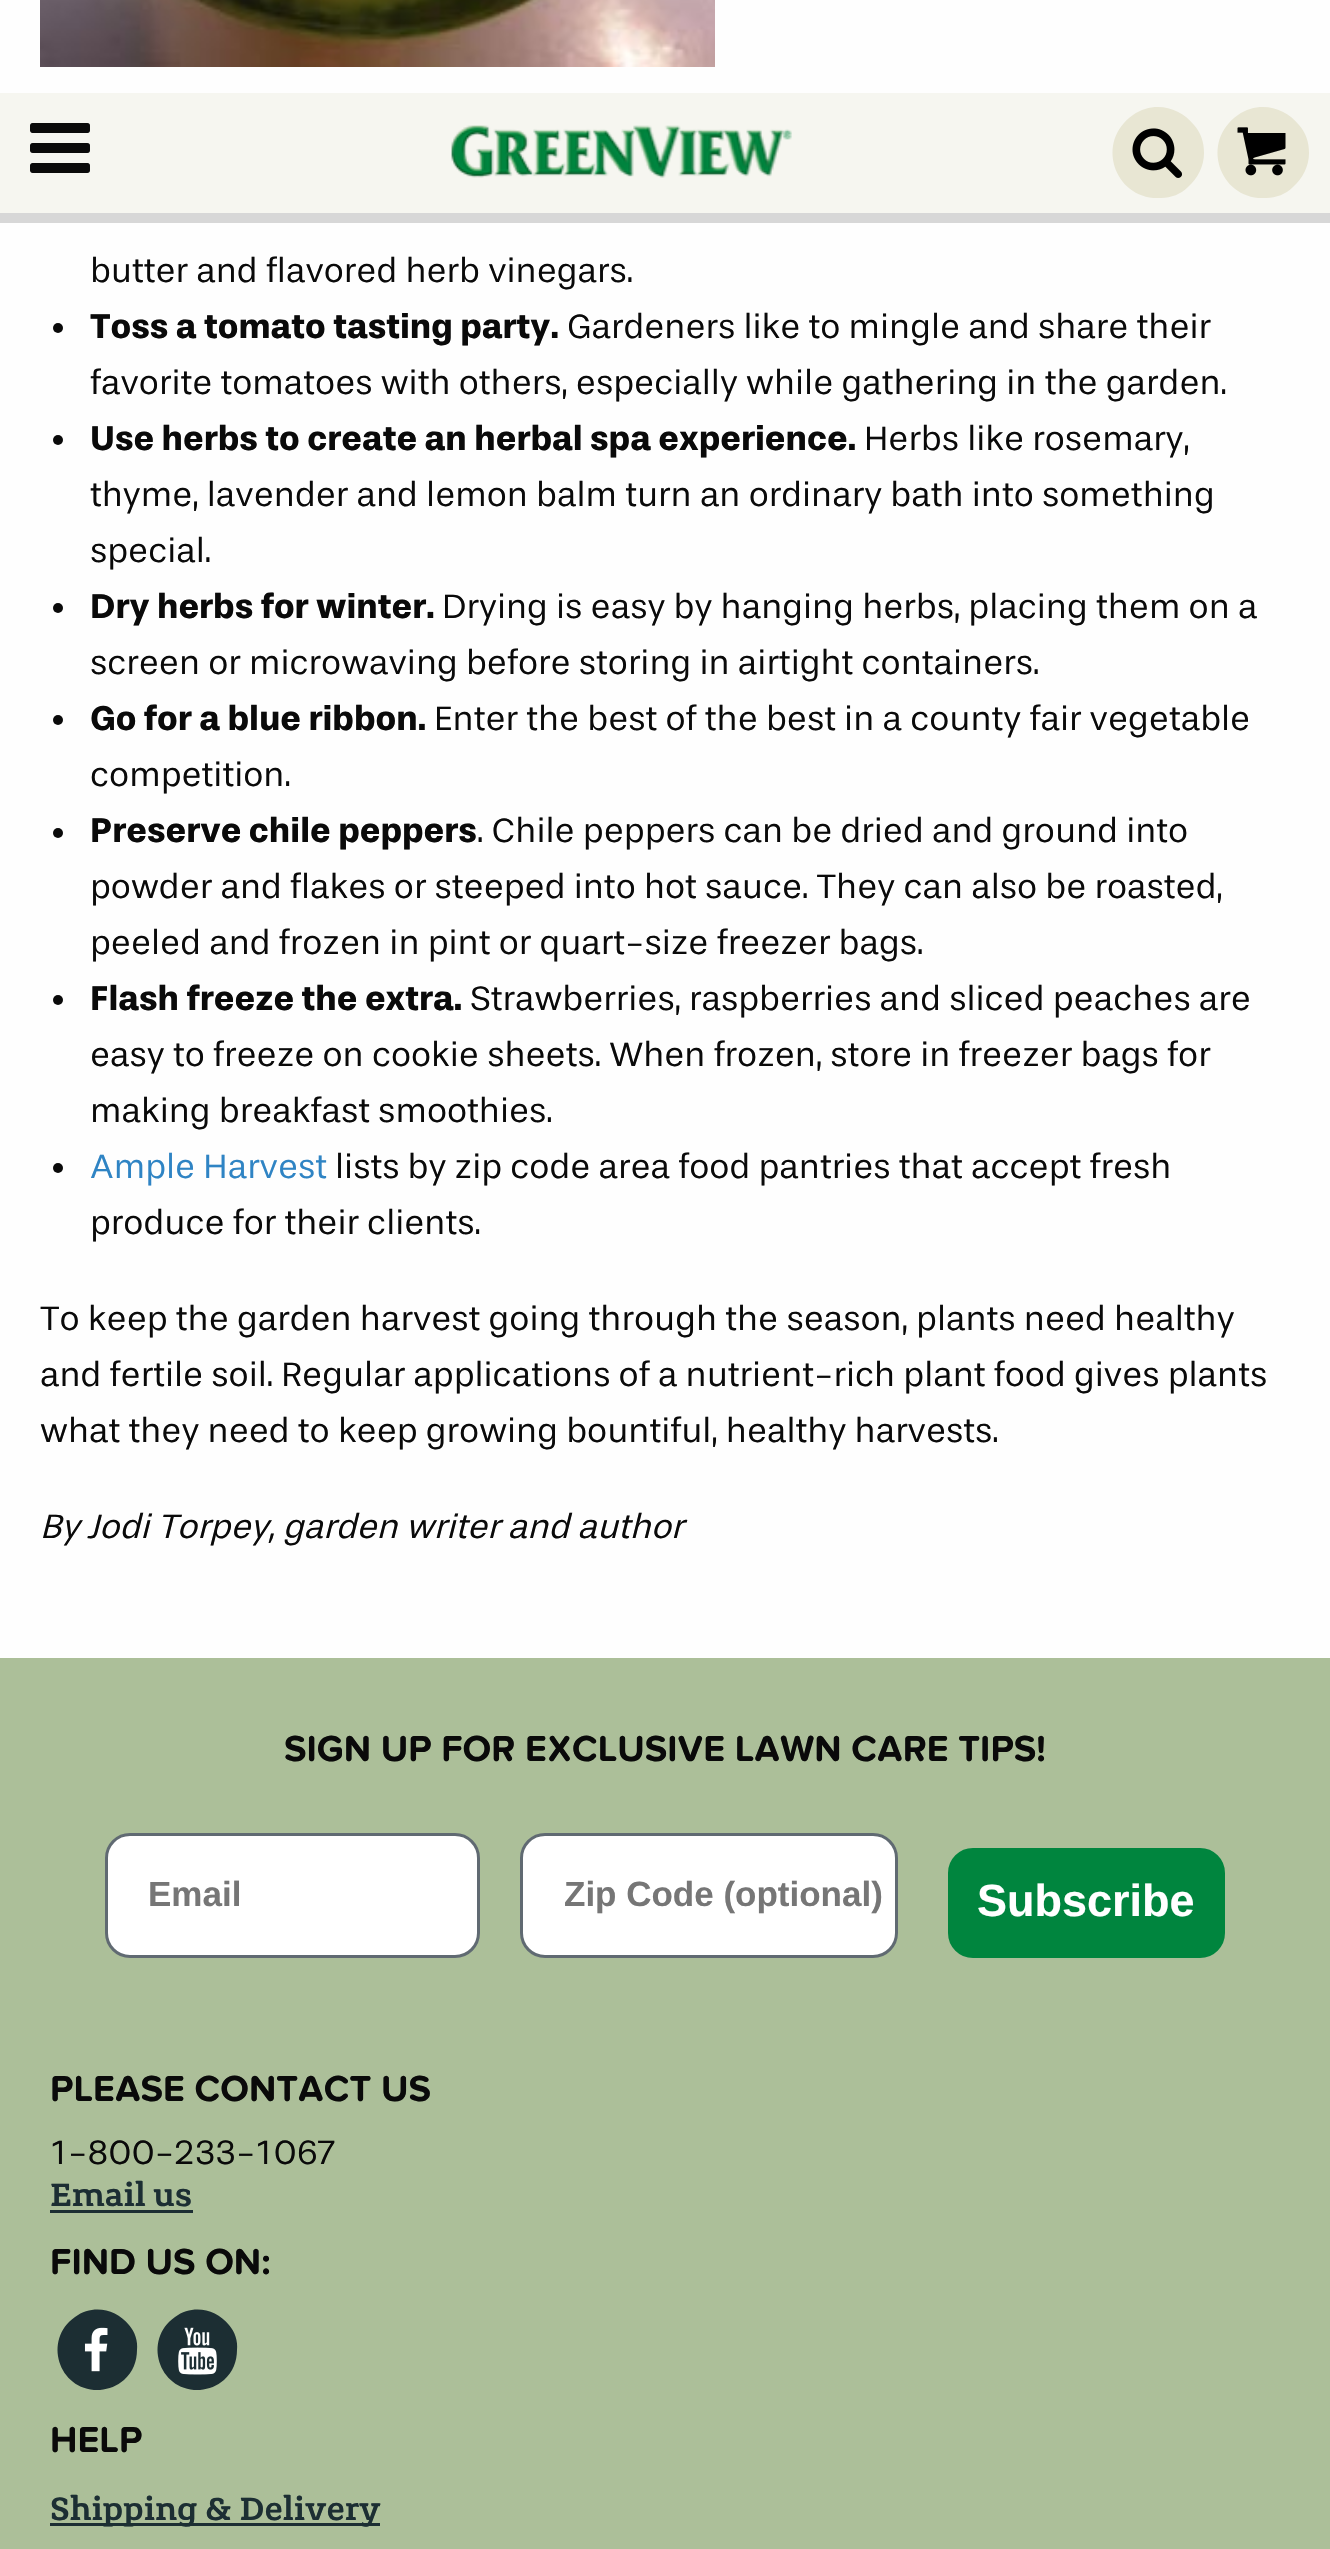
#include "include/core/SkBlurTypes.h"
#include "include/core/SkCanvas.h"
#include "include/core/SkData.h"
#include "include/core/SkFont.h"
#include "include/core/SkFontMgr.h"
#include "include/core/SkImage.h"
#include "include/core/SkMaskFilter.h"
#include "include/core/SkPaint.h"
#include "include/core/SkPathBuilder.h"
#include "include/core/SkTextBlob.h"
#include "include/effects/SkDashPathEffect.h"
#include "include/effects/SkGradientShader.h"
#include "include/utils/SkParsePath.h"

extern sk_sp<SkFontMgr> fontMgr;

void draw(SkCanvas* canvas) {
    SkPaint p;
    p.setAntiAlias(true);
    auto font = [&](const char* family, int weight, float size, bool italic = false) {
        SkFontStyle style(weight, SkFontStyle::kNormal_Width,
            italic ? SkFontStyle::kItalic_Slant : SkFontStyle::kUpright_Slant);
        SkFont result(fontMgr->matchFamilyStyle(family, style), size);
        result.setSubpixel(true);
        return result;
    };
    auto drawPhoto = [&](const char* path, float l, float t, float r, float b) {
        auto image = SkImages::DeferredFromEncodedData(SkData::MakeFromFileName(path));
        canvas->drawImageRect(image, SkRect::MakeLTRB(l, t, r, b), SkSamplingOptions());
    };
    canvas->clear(0xFFFEFEFE);
    p.setColor(0xFFD7D7D7);
    canvas->drawRect(SkRect::MakeLTRB(0, 213, 1330, 223), p);
    p.setColor(0xFFF6F6F0);
    canvas->drawRect(SkRect::MakeLTRB(0, 93, 1330, 213), p);
    drawPhoto("media/1.png", 30, 123, 90, 173);
    drawPhoto("media/2.png", 451, 125, 792, 178);
    p.setColor(0xFFE8E6D3);
    canvas->drawPath(SkPathBuilder().moveTo(1204, 153).cubicTo(1204, 166, 1198, 178, 1188, 187).cubicTo(1181, 194, 1171, 198, 1161, 198).cubicTo(1115, 201, 1094, 142, 1133, 115).cubicTo(1153, 101, 1179, 106, 1194, 125).cubicTo(1201, 133, 1204, 142, 1204, 153).close().detach(), p);
    drawPhoto("media/3.png", 1132, 128, 1182, 178);
    canvas->drawPath(SkPathBuilder().moveTo(1309, 153).cubicTo(1309, 166, 1303, 178, 1293, 187).cubicTo(1286, 194, 1276, 198, 1266, 198).cubicTo(1220, 201, 1199, 142, 1238, 115).cubicTo(1258, 101, 1284, 106, 1299, 125).cubicTo(1306, 133, 1309, 142, 1309, 153).close().detach(), p);
    drawPhoto("media/4.png", 1237, 127, 1286, 176);
    drawPhoto("media/5.png", 40, 0, 715, 67);
    auto font1 = font("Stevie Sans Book", 400, 35);
    p.setColor(0xFF0A0A0A);
    canvas->drawString("butter and flavored herb vinegars.", 90, 282, font1, p);
    canvas->drawCircle(58, 328, 5, p);
    auto font2 = font("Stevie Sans", 700, 35);
    canvas->drawString("Toss a tomato tasting party.", 90, 338, font2, p);
    canvas->drawString("Gardeners like to mingle and share their", 567, 338, font1, p);
    canvas->drawString("favorite tomatoes with others, especially while gathering in the garden.", 90, 394, font1, p);
    canvas->drawCircle(58, 440, 5, p);
    canvas->drawString("Use herbs to create an herbal spa experience.", 90, 450, font2, p);
    {
        const struct { const char* s; float x, y; } items[] = {
            {"Herbs like rosemary,", 864, 450},
            {"thyme, lavender and lemon balm turn an ordinary bath into something", 90, 506},
            {"special.", 90, 562},
        };
        for (auto [s, x, y] : items) {
            canvas->drawString(s, x, y, font1, p);
        }
    }
    canvas->drawCircle(58, 608, 5, p);
    canvas->drawString("Dry herbs for winter.", 90, 618, font2, p);
    canvas->drawString("Drying is easy by hanging herbs, placing them on a", 442, 618, font1, p);
    canvas->drawString("screen or microwaving before storing in airtight containers.", 90, 674, font1, p);
    canvas->drawCircle(58, 720, 5, p);
    canvas->drawString("Go for a blue ribbon.", 90, 730, font2, p);
    canvas->drawString("Enter the best of the best in a county fair vegetable", 434, 730, font1, p);
    canvas->drawString("competition.", 90, 786, font1, p);
    canvas->drawCircle(58, 833, 5, p);
    canvas->drawString("Preserve chile peppers", 90, 842, font2, p);
    {
        const struct { const char* s; float x, y; } items[] = {
            {". Chile peppers can be dried and ground into", 477, 842},
            {"powder and flakes or steeped into hot sauce. They can also be roasted,", 90, 898},
            {"peeled and frozen in pint or quart-size freezer bags.", 90, 954},
        };
        for (auto [s, x, y] : items) {
            canvas->drawString(s, x, y, font1, p);
        }
    }
    canvas->drawCircle(58, 1000, 5, p);
    canvas->drawString("Flash freeze the extra.", 90, 1010, font2, p);
    {
        const struct { const char* s; float x, y; } items[] = {
            {"Strawberries, raspberries and sliced peaches are", 470, 1010},
            {"easy to freeze on cookie sheets. When frozen, store in freezer bags for", 90, 1066},
            {"making breakfast smoothies.", 90, 1122},
        };
        for (auto [s, x, y] : items) {
            canvas->drawString(s, x, y, font1, p);
        }
    }
    canvas->drawCircle(58, 1168, 5, p);
    p.setColor(0xFF2F84C4);
    canvas->drawString("Ample Harvest", 90, 1178, font1, p);
    p.setColor(0xFF0A0A0A);
    {
        const struct { const char* s; float x, y; } items[] = {
            {"lists by zip code area food pantries that accept fresh", 335, 1178},
            {"produce for their clients.", 90, 1234},
            {"To keep the garden harvest going through the season, plants need healthy", 40, 1330},
            {"and fertile soil. Regular applications of a nutrient-rich plant food gives plants", 40, 1386},
            {"what they need to keep growing bountiful, healthy harvests.", 40, 1442},
        };
        for (auto [s, x, y] : items) {
            canvas->drawString(s, x, y, font1, p);
        }
    }
    auto font3 = font("Stevie Sans Book", 400, 35, true);
    canvas->drawString("By Jodi Torpey, garden writer and author", 40, 1538, font3, p);
    p.setColor(0xFFACBF99);
    canvas->drawRect(SkRect::MakeLTRB(0, 1658, 1330, 2549), p);
    auto font4 = font("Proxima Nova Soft", 700, 37.5f);
    p.setColor(0xFF0A0A0A);
    canvas->drawString("SIGN UP FOR EXCLUSIVE LAWN CARE TIPS!", 284, 1761, font4, p);
    p.setColor(0xFFFFFFFF);
    canvas->drawRoundRect(SkRect::MakeLTRB(106.5f, 1834.5f, 478.5f, 1956.5f), 23.5f, 23.5f, p);
    p.setStyle(SkPaint::kStroke_Style);
    p.setStrokeWidth(3);
    p.setColor(0xFF606A72);
    canvas->drawRoundRect(SkRect::MakeLTRB(106.5f, 1834.5f, 478.5f, 1956.5f), 23.5f, 23.5f, p);
    auto font5 = font("Liberation Sans", 700, 35);
    p.setStyle(SkPaint::kFill_Style);
    p.setColor(0xFF767676);
    canvas->drawString("Email", 148, 1906, font5, p);
    p.setColor(0xFFFFFFFF);
    canvas->drawRoundRect(SkRect::MakeLTRB(521.5f, 1834.5f, 896.5f, 1956.5f), 23.5f, 23.5f, p);
    p.setStyle(SkPaint::kStroke_Style);
    p.setColor(0xFF606A72);
    canvas->drawRoundRect(SkRect::MakeLTRB(521.5f, 1834.5f, 896.5f, 1956.5f), 23.5f, 23.5f, p);
    p.setStyle(SkPaint::kFill_Style);
    p.setColor(0xFF767676);
    canvas->drawString("Zip Code (optional)", 564, 1906, font5, p);
    p.setColor(0xFF00853E);
    canvas->drawRoundRect(SkRect::MakeLTRB(950.5f, 1850.5f, 1222.5f, 1955.5f), 22.5f, 22.5f, p);
    p.setStyle(SkPaint::kStroke_Style);
    p.setStrokeWidth(5);
    canvas->drawRoundRect(SkRect::MakeLTRB(950.5f, 1850.5f, 1222.5f, 1955.5f), 22.5f, 22.5f, p);
    auto font6 = font("Liberation Sans", 700, 45);
    p.setStyle(SkPaint::kFill_Style);
    p.setColor(0xFFFFFFFF);
    canvas->drawString("Subscribe", 977, 1916, font6, p);
    p.setColor(0xFF0A0A0A);
    canvas->drawString("PLEASE CONTACT US", 50, 2101, font4, p);
    canvas->drawString("1-800-233-1067", 50, 2164, font1, p);
    auto font7 = font("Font", 400, 35);
    p.setColor(0xFF1C2E33);
    canvas->drawString("Email us", 50, 2206, font7, p);
    canvas->drawRect(SkRect::MakeLTRB(50, 2210, 193, 2213), p);
    p.setColor(0xFF0A0A0A);
    canvas->drawString("FIND US ON:", 50, 2274, font4, p);
    p.setColor(0xFF1C2E33);
    canvas->drawPath(SkPathBuilder().moveTo(137, 2350).cubicTo(137, 2361, 133, 2372, 124, 2380).cubicTo(117, 2386, 109, 2389, 100, 2390).cubicTo(59, 2392, 42, 2340, 75, 2317).cubicTo(93, 2304, 116, 2309, 129, 2325).cubicTo(135, 2332, 138, 2341, 137, 2350).close().detach(), p);
    drawPhoto("media/6.png", 84, 2327, 108, 2372);
    canvas->drawPath(SkPathBuilder().moveTo(237, 2350).cubicTo(237, 2361, 233, 2372, 224, 2380).cubicTo(217, 2386, 209, 2389, 200, 2390).cubicTo(159, 2392, 142, 2340, 175, 2317).cubicTo(193, 2304, 216, 2309, 229, 2325).cubicTo(235, 2332, 238, 2341, 237, 2350).close().detach(), p);
    drawPhoto("media/7.png", 178, 2327, 217, 2375);
    p.setColor(0xFF0A0A0A);
    canvas->drawString("HELP", 50, 2452, font4, p);
    p.setColor(0xFF1C2E33);
    canvas->drawRect(SkRect::MakeLTRB(50, 2523, 380, 2526), p);
    canvas->drawString("Shipping & Delivery", 50, 2520, font7, p);
}
